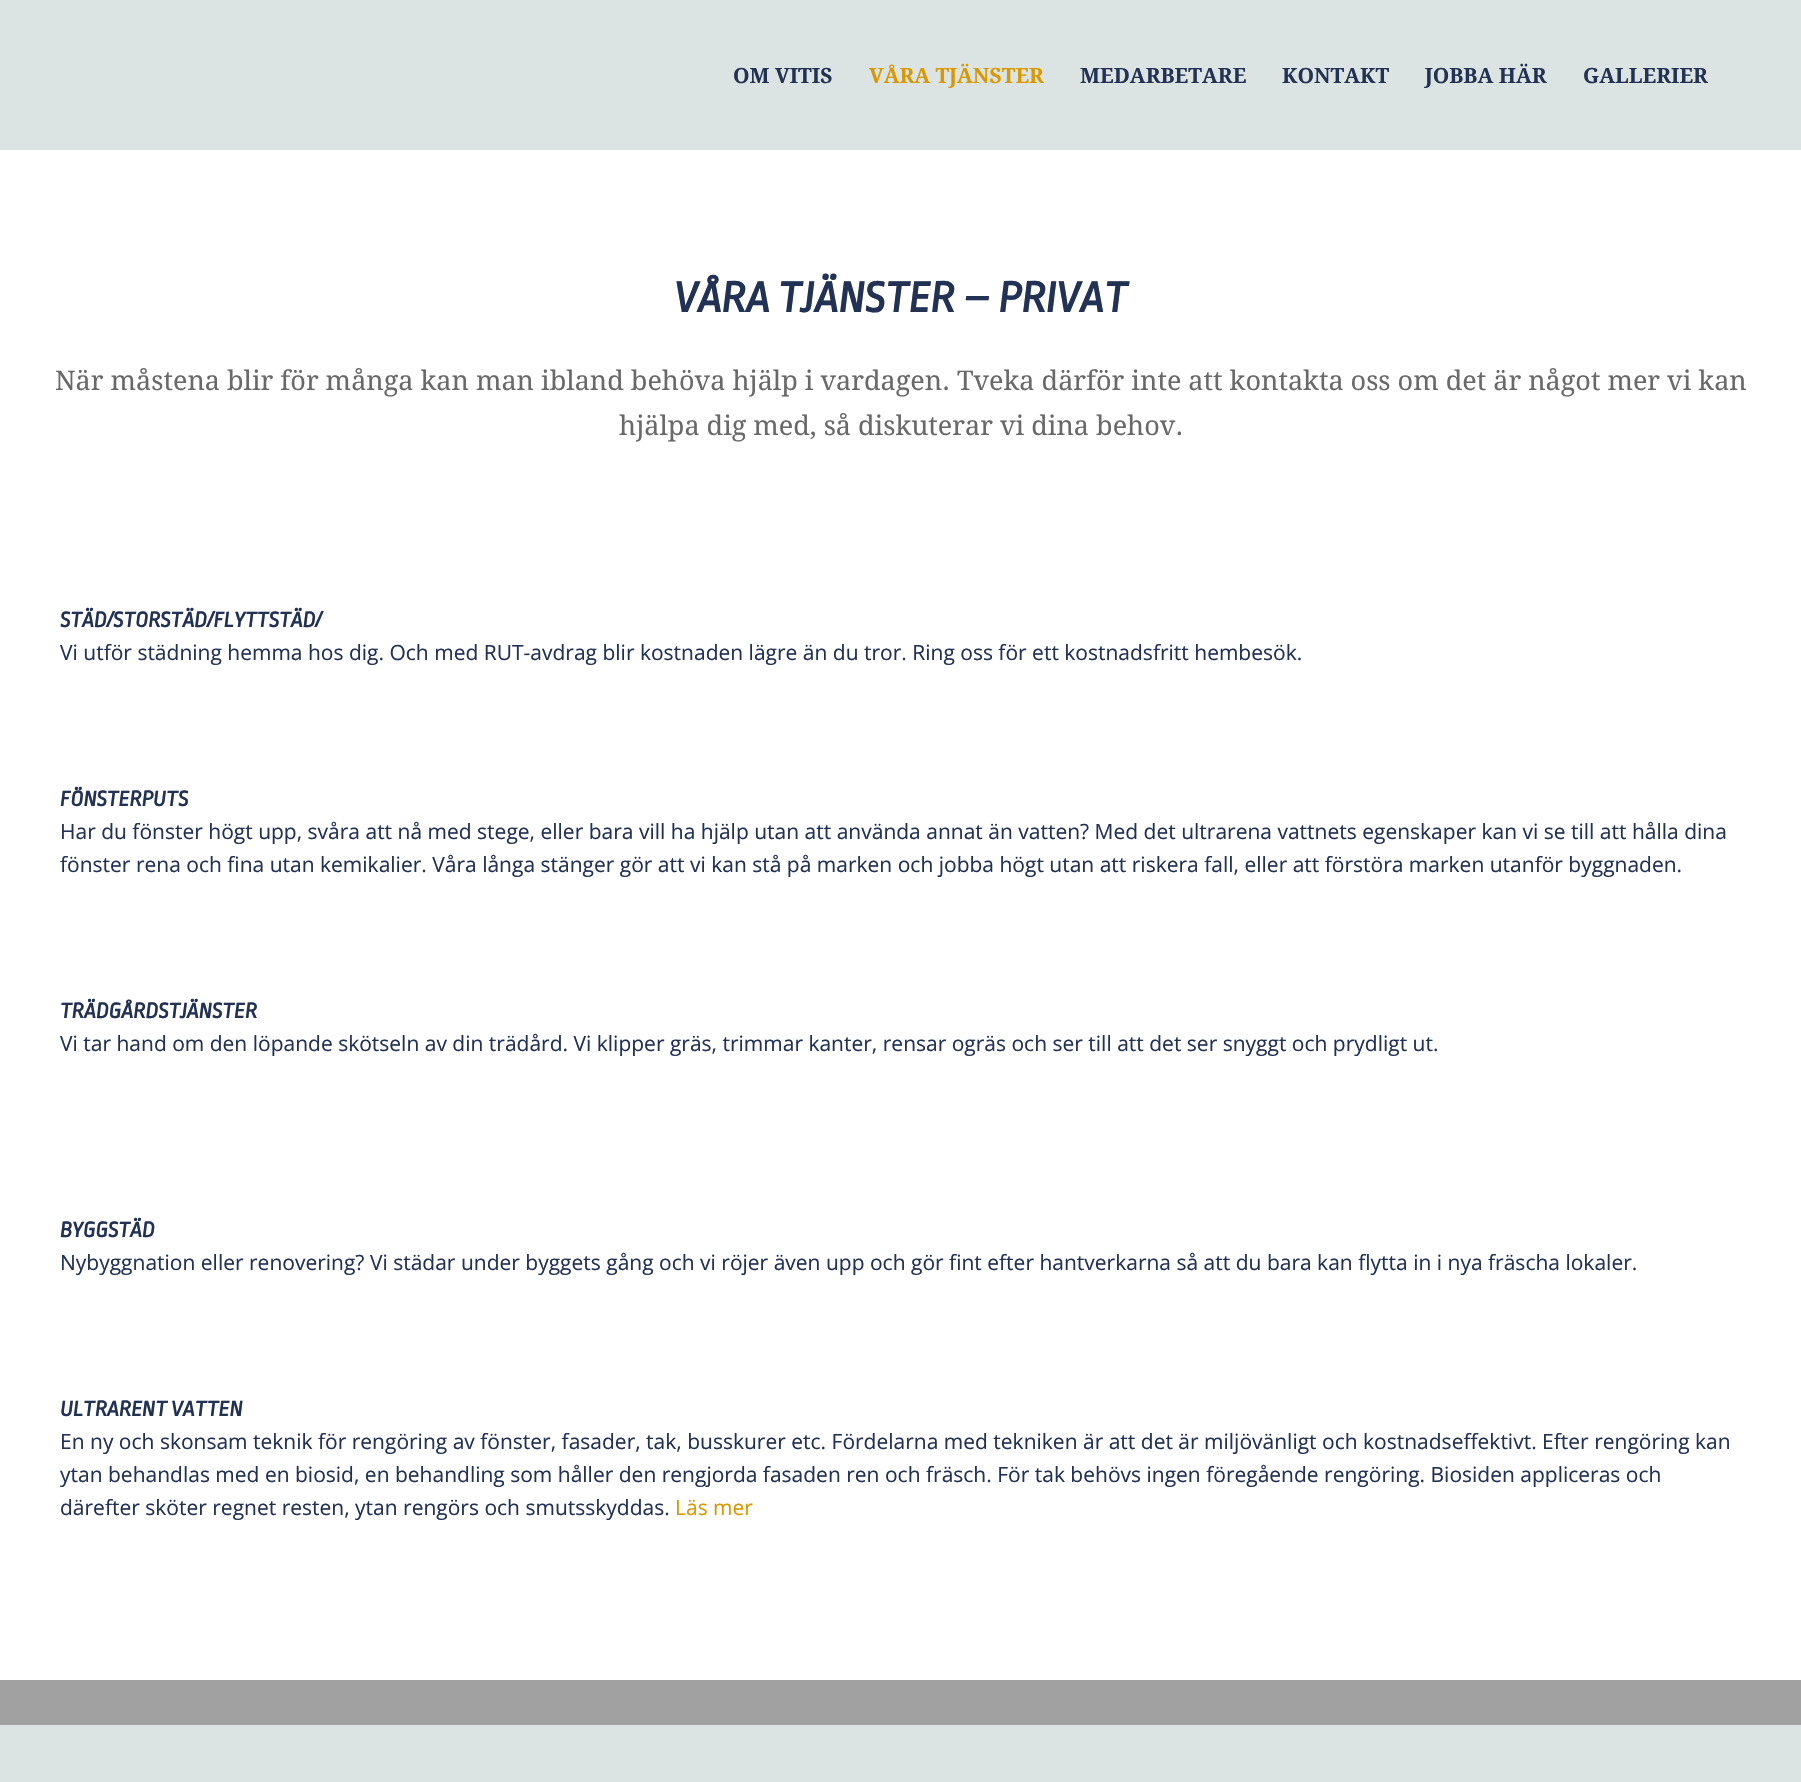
#include "include/core/SkBlurTypes.h"
#include "include/core/SkCanvas.h"
#include "include/core/SkData.h"
#include "include/core/SkFont.h"
#include "include/core/SkFontMgr.h"
#include "include/core/SkImage.h"
#include "include/core/SkMaskFilter.h"
#include "include/core/SkPaint.h"
#include "include/core/SkPathBuilder.h"
#include "include/core/SkTextBlob.h"
#include "include/effects/SkDashPathEffect.h"
#include "include/effects/SkGradientShader.h"
#include "include/utils/SkParsePath.h"

extern sk_sp<SkFontMgr> fontMgr;

void draw(SkCanvas* canvas) {
    SkPaint p;
    p.setAntiAlias(true);
    auto font = [&](const char* family, int weight, float size, bool italic = false) {
        SkFontStyle style(weight, SkFontStyle::kNormal_Width,
            italic ? SkFontStyle::kItalic_Slant : SkFontStyle::kUpright_Slant);
        SkFont result(fontMgr->matchFamilyStyle(family, style), size);
        result.setSubpixel(true);
        return result;
    };
    canvas->clear(0xFFFFFFFF);
    p.setColor(0xFFDCE3E3);
    canvas->drawRect(SkRect::MakeLTRB(0, 0, 1801, 150), p);
    auto font1 = font("Droid Serif", 700, 21);
    p.setColor(0xFF223254);
    canvas->drawString("OM VITIS", 733, 83, font1, p);
    p.setColor(0xFFD99800);
    canvas->drawString("VÅRA TJÄNSTER", 869, 83, font1, p);
    p.setColor(0xFF223254);
    {
        const struct { const char* s; float x, y; } items[] = {
            {"MEDARBETARE", 1080, 83},
            {"KONTAKT", 1282, 83},
            {"JOBBA HÄR", 1425, 83},
            {"GALLERIER", 1583, 83},
        };
        for (auto [s, x, y] : items) {
            canvas->drawString(s, x, y, font1, p);
        }
    }
    auto font2 = font("Ropa Sans", 700, 45, true);
    canvas->drawString("VÅRA TJÄNSTER – PRIVAT", 674, 312, font2, p);
    auto font3 = font("Droid Serif", 400, 27);
    p.setColor(0xFF696969);
    canvas->drawString("När måstena blir för många kan man ibland behöva hjälp i vardagen. Tveka därför inte att kontakta oss om det är något mer vi kan", 55, 390, font3, p);
    canvas->drawString("hjälpa dig med, så diskuterar vi dina behov.", 619, 435, font3, p);
    auto font4 = font("Ropa Sans", 700, 22.5f, true);
    p.setColor(0xFF223254);
    canvas->drawString("STÄD/STORSTÄD/FLYTTSTÄD/", 60, 627, font4, p);
    auto font5 = font("Open Sans", 400, 21);
    canvas->drawString("Vi utför städning hemma hos dig. Och med RUT-avdrag blir kostnaden lägre än du tror. Ring oss för ett kostnadsfritt hembesök.", 60, 660, font5, p);
    canvas->drawString("FÖNSTERPUTS", 60, 806, font4, p);
    canvas->drawString("Har du fönster högt upp, svåra att nå med stege, eller bara vill ha hjälp utan att använda annat än vatten? Med det ultrarena vattnets egenskaper kan vi se till att hålla dina", 60, 839, font5, p);
    canvas->drawString("fönster rena och fina utan kemikalier. Våra långa stänger gör att vi kan stå på marken och jobba högt utan att riskera fall, eller att förstöra marken utanför byggnaden.", 60, 872, font5, p);
    canvas->drawString("TRÄDGÅRDSTJÄNSTER", 60, 1018, font4, p);
    canvas->drawString("Vi tar hand om den löpande skötseln av din trädård. Vi klipper gräs, trimmar kanter, rensar ogräs och ser till att det ser snyggt och prydligt ut.", 60, 1051, font5, p);
    canvas->drawString("BYGGSTÄD", 60, 1237, font4, p);
    canvas->drawString("Nybyggnation eller renovering? Vi städar under byggets gång och vi röjer även upp och gör fint efter hantverkarna så att du bara kan flytta in i nya fräscha lokaler.", 60, 1270, font5, p);
    canvas->drawString("ULTRARENT VATTEN", 60, 1416, font4, p);
    {
        const struct { const char* s; float x, y; } items[] = {
            {"En ny och skonsam teknik för rengöring av fönster, fasader, tak, busskurer etc. Fördelarna med tekniken är att det är miljövänligt och kostnadseffektivt. Efter rengöring kan", 60, 1449},
            {"ytan behandlas med en biosid, en behandling som håller den rengjorda fasaden ren och fräsch. För tak behövs ingen föregående rengöring. Biosiden appliceras och", 60, 1482},
            {"därefter sköter regnet resten, ytan rengörs och smutsskyddas.", 60, 1515},
        };
        for (auto [s, x, y] : items) {
            canvas->drawString(s, x, y, font5, p);
        }
    }
    p.setColor(0xFFD99800);
    canvas->drawString("Läs mer", 675, 1515, font5, p);
    p.setColor(0xFFA1A1A1);
    canvas->drawRect(SkRect::MakeLTRB(0, 1680, 1801, 1725), p);
    p.setColor(0xFFDCE3E3);
    canvas->drawRect(SkRect::MakeLTRB(0, 1725, 1801, 1782), p);
}
